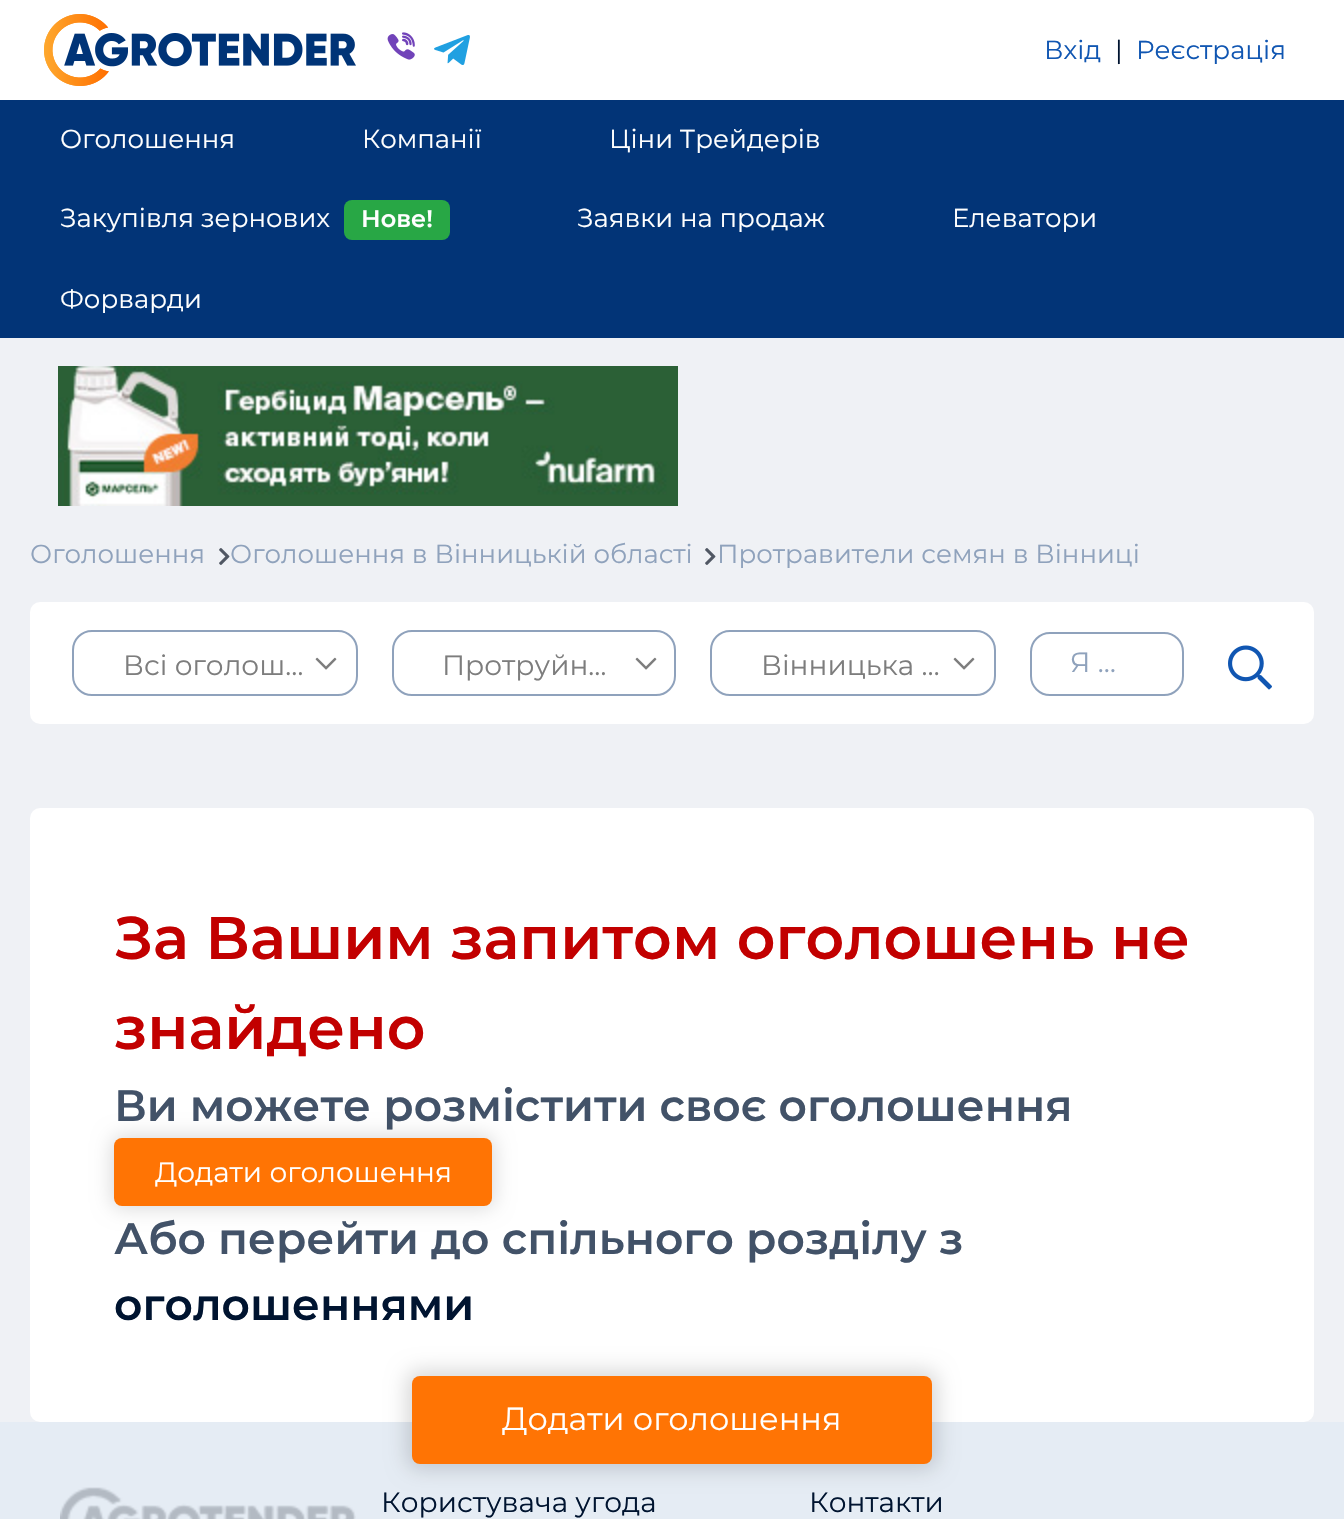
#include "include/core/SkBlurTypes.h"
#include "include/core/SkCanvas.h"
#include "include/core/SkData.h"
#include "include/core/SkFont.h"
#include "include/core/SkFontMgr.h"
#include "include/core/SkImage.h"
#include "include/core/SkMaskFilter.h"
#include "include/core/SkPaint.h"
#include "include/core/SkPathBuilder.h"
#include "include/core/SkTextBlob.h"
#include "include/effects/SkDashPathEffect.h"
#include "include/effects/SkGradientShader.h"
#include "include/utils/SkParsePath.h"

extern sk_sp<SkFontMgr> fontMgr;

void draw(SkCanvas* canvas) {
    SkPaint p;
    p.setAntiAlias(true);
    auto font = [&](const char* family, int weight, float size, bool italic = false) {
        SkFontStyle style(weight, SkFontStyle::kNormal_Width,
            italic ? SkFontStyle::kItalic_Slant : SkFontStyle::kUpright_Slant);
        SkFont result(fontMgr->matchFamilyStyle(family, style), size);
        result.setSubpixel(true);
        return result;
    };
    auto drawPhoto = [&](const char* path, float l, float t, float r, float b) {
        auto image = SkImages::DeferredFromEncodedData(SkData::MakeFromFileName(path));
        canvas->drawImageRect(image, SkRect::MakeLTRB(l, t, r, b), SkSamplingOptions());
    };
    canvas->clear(0xFFEFF1F5);
    p.setColor(0xFFFFFFFF);
    canvas->drawRect(SkRect::MakeLTRB(0, 0, 1344, 100), p);
    drawPhoto("media/1.png", 44, 14, 356, 86);
    drawPhoto("media/2.png", 387, 32, 415, 60);
    drawPhoto("media/3.png", 434, 35, 470, 65);
    auto font1 = font("Montserrat", 400, 26);
    p.setColor(0xFF1056B2);
    canvas->drawString("Вхід", 1044, 59, font1, p);
    p.setColor(0xFF001430);
    canvas->drawString("|", 1115, 59, font1, p);
    p.setColor(0xFF1056B2);
    canvas->drawString("Реєстрація", 1136, 59, font1, p);
    p.setColor(0xFF023477);
    canvas->drawRect(SkRect::MakeLTRB(0, 100, 1344, 338), p);
    p.setColor(0xFFFFFFFF);
    {
        const struct { const char* s; float x, y; } items[] = {
            {"Оголошення", 60, 148},
            {"Компанії", 362, 148},
            {"Ціни Трейдерів", 609, 148},
            {"Закупівля зернових", 60, 227},
        };
        for (auto [s, x, y] : items) {
            canvas->drawString(s, x, y, font1, p);
        }
    }
    p.setColor(0xFF28A745);
    canvas->drawRoundRect(SkRect::MakeLTRB(344, 200, 450, 240), 8, 8, p);
    auto font2 = font("Montserrat", 600, 24);
    p.setColor(0xFFFFFFFF);
    canvas->drawString("Нове!", 361, 227, font2, p);
    {
        const struct { const char* s; float x, y; } items[] = {
            {"Заявки на продаж", 577, 227},
            {"Елеватори", 952, 227},
            {"Форварди", 60, 308},
        };
        for (auto [s, x, y] : items) {
            canvas->drawString(s, x, y, font1, p);
        }
    }
    drawPhoto("media/4.png", 58, 366, 678, 506);
    p.setColor(0xFF8FA2BC);
    canvas->drawString("Оголошення", 30, 563, font1, p);
    drawPhoto("media/5.png", 219, 548, 230, 565);
    canvas->drawString("Оголошення в Вінницькій області", 230, 563, font1, p);
    drawPhoto("media/5.png", 705, 548, 716, 565);
    canvas->drawString("Протравители семян в Вінниці", 717, 563, font1, p);
    p.setColor(0xFFFFFFFF);
    canvas->drawRoundRect(SkRect::MakeLTRB(30, 602, 1314, 724), 10, 10, p);
    p.setStyle(SkPaint::kStroke_Style);
    p.setStrokeWidth(2);
    p.setColor(0xFF8FA2BC);
    canvas->drawRoundRect(SkRect::MakeLTRB(73, 631, 357, 695), 19, 19, p);
    auto font3 = font("Montserrat", 400, 28);
    p.setStyle(SkPaint::kFill_Style);
    p.setColor(0xFF7D7D7D);
    canvas->drawString("Всі оголош…", 123, 675, font3, p);
    drawPhoto("media/6.png", 315, 657, 337, 670);
    p.setStyle(SkPaint::kStroke_Style);
    p.setColor(0xFF8FA2BC);
    canvas->drawRoundRect(SkRect::MakeLTRB(393, 631, 675, 695), 19, 19, p);
    p.setStyle(SkPaint::kFill_Style);
    p.setColor(0xFF7D7D7D);
    canvas->drawString("Протруйн…", 442, 675, font3, p);
    drawPhoto("media/6.png", 635, 657, 657, 670);
    p.setStyle(SkPaint::kStroke_Style);
    p.setColor(0xFF8FA2BC);
    canvas->drawRoundRect(SkRect::MakeLTRB(711, 631, 995, 695), 19, 19, p);
    p.setStyle(SkPaint::kFill_Style);
    p.setColor(0xFF7D7D7D);
    canvas->drawString("Вінницька …", 761, 675, font3, p);
    drawPhoto("media/6.png", 953, 657, 975, 670);
    p.setStyle(SkPaint::kStroke_Style);
    p.setColor(0xFF8FA2BC);
    canvas->drawRoundRect(SkRect::MakeLTRB(1031, 633, 1183, 695), 19, 19, p);
    p.setStyle(SkPaint::kFill_Style);
    canvas->drawString("Я …", 1070, 672, font3, p);
    drawPhoto("media/7.png", 1228, 645, 1272, 690);
    p.setColor(0xFFFFFFFF);
    canvas->drawRoundRect(SkRect::MakeLTRB(30, 808, 1314, 1422), 10, 10, p);
    auto font4 = font("Montserrat", 600, 60);
    p.setColor(0xFFC20000);
    canvas->drawString("За Вашим запитом оголошень не", 114, 959, font4, p);
    canvas->drawString("знайдено", 114, 1049, font4, p);
    auto font5 = font("Montserrat", 600, 44);
    p.setColor(0xFF425268);
    canvas->drawString("Ви можете розмістити своє оголошення", 114, 1121, font5, p);
    p.setColor(0x26000000);
    p.setMaskFilter(SkMaskFilter::MakeBlur(kNormal_SkBlurStyle, 10));
    canvas->drawRoundRect(SkRect::MakeLTRB(112, 1136, 494, 1208), 10, 10, p);
    p.setMaskFilter(nullptr);
    p.setColor(0xFFFF7404);
    canvas->drawRoundRect(SkRect::MakeLTRB(114, 1138, 492, 1206), 8, 8, p);
    p.setColor(0xFFFFFFFF);
    canvas->drawString("Додати оголошення", 155, 1182, font3, p);
    p.setColor(0xFF425268);
    canvas->drawString("Або перейти до спільного розділу з", 114, 1254, font5, p);
    p.setColor(0xFF001430);
    canvas->drawString("оголошеннями", 114, 1320, font5, p);
    p.setColor(0xFFE5ECF4);
    canvas->drawRect(SkRect::MakeLTRB(0, 1422, 1344, 1519), p);
    p.setColor(0x26000000);
    p.setMaskFilter(SkMaskFilter::MakeBlur(kNormal_SkBlurStyle, 10));
    canvas->drawRoundRect(SkRect::MakeLTRB(406, 1370, 938, 1470), 14, 14, p);
    p.setMaskFilter(nullptr);
    p.setColor(0xFFFF7404);
    canvas->drawRoundRect(SkRect::MakeLTRB(412, 1376, 932, 1464), 8, 8, p);
    auto font6 = font("Montserrat", 400, 32);
    p.setColor(0xFFFFFFFF);
    canvas->drawString("Додати оголошення", 502, 1430, font6, p);
    drawPhoto("media/8.png", 60, 1487, 356, 1519);
    p.setColor(0xFF001430);
    canvas->drawString("Користувача угода", 381, 1512, font3, p);
    canvas->drawString("Контакти", 809, 1512, font3, p);
}
